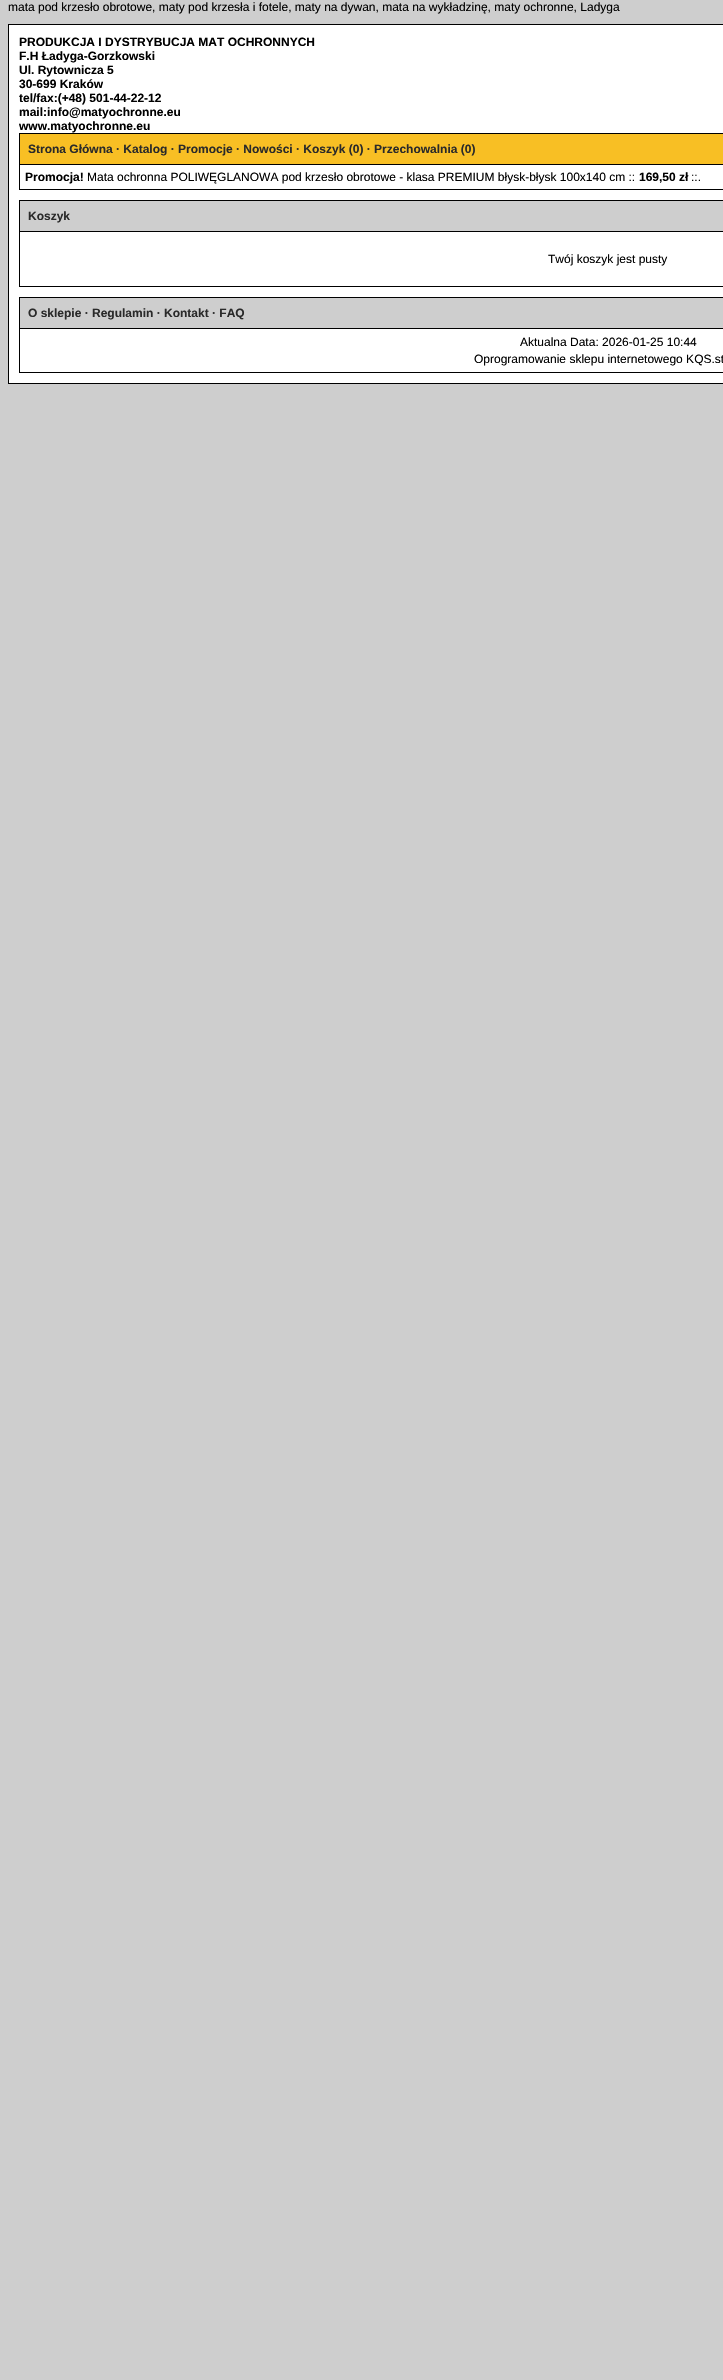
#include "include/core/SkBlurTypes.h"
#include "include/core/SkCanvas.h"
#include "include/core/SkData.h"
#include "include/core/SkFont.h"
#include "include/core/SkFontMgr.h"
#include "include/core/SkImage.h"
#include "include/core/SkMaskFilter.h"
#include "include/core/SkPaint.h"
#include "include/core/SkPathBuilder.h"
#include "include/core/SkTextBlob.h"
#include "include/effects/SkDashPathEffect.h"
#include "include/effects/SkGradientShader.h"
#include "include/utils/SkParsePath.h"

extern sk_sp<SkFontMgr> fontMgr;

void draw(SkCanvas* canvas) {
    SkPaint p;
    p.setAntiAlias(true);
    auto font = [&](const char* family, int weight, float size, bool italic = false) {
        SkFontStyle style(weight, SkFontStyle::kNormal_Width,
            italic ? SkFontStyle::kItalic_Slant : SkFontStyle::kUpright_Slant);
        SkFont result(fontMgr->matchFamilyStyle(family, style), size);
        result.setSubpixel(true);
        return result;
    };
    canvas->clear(0xFFCECECE);
    auto font1 = font("Liberation Sans", 400, 12);
    p.setColor(0xFF000000);
    canvas->drawString("mata pod krzesło obrotowe, maty pod krzesła i fotele, maty na dywan, mata na wykładzinę, maty ochronne, Ladyga", 8, 11, font1, p);
    p.setColor(0xFFFFFFFF);
    canvas->drawRect(SkRect::MakeLTRB(8.5f, 24.5f, 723.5f, 383.5f), p);
    p.setStyle(SkPaint::kStroke_Style);
    p.setStrokeWidth(1);
    p.setColor(0xFF000000);
    canvas->drawRect(SkRect::MakeLTRB(8.5f, 24.5f, 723.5f, 383.5f), p);
    auto font2 = font("Liberation Sans", 700, 12);
    p.setStyle(SkPaint::kFill_Style);
    {
        const struct { const char* s; float x, y; } items[] = {
            {"PRODUKCJA I DYSTRYBUCJA MAT OCHRONNYCH", 19, 46},
            {"F.H Ładyga-Gorzkowski", 19, 60},
            {"Ul. Rytownicza 5", 19, 74},
            {"30-699 Kraków", 19, 88},
            {"tel/fax:(+48) 501-44-22-12", 19, 102},
            {"mail:info@matyochronne.eu", 19, 116},
            {"www.matyochronne.eu", 19, 130},
        };
        for (auto [s, x, y] : items) {
            canvas->drawString(s, x, y, font2, p);
        }
    }
    p.setColor(0xFFF8BF24);
    canvas->drawRect(SkRect::MakeLTRB(19.5f, 133.5f, 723.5f, 164.5f), p);
    p.setStyle(SkPaint::kStroke_Style);
    p.setColor(0xFF000000);
    canvas->drawRect(SkRect::MakeLTRB(19.5f, 133.5f, 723.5f, 164.5f), p);
    p.setStyle(SkPaint::kFill_Style);
    p.setColor(0xFF2A2A2A);
    canvas->drawString("Strona Główna · Katalog · Promocje · Nowości · Koszyk (0) · Przechowalnia (0)", 28, 153, font2, p);
    p.setColor(0xFF000000);
    canvas->drawRect(SkRect::MakeLTRB(19, 189, 723, 190), p);
    canvas->drawRect(SkRect::MakeLTRB(19, 165, 20, 190), p);
    canvas->drawString("Promocja!", 25, 181, font2, p);
    canvas->drawString("Mata ochronna POLIWĘGLANOWA pod krzesło obrotowe - klasa PREMIUM błysk-błysk 100x140 cm ::", 87, 181, font1, p);
    canvas->drawString("169,50 zł", 639, 181, font2, p);
    canvas->drawString("::.", 691, 181, font1, p);
    p.setColor(0xFFCECECE);
    canvas->drawRect(SkRect::MakeLTRB(19.5f, 200.5f, 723.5f, 231.5f), p);
    p.setStyle(SkPaint::kStroke_Style);
    p.setColor(0xFF000000);
    canvas->drawRect(SkRect::MakeLTRB(19.5f, 200.5f, 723.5f, 231.5f), p);
    p.setStyle(SkPaint::kFill_Style);
    p.setColor(0xFF2A2A2A);
    canvas->drawString("Koszyk", 28, 220, font2, p);
    p.setColor(0xFF000000);
    canvas->drawRect(SkRect::MakeLTRB(19, 286, 723, 287), p);
    canvas->drawRect(SkRect::MakeLTRB(19, 232, 20, 287), p);
    canvas->drawString("Twój koszyk jest pusty", 548, 263, font1, p);
    p.setColor(0xFFCECECE);
    canvas->drawRect(SkRect::MakeLTRB(19.5f, 297.5f, 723.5f, 328.5f), p);
    p.setStyle(SkPaint::kStroke_Style);
    p.setColor(0xFF000000);
    canvas->drawRect(SkRect::MakeLTRB(19.5f, 297.5f, 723.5f, 328.5f), p);
    p.setStyle(SkPaint::kFill_Style);
    p.setColor(0xFF2A2A2A);
    canvas->drawString("O sklepie · Regulamin · Kontakt · FAQ", 28, 317, font2, p);
    p.setColor(0xFF000000);
    canvas->drawRect(SkRect::MakeLTRB(19, 372, 723, 373), p);
    canvas->drawRect(SkRect::MakeLTRB(19, 329, 20, 373), p);
    canvas->drawString("Aktualna Data: 2026-01-25 10:44", 520, 346, font1, p);
    canvas->drawString("Oprogramowanie sklepu internetowego KQS.st", 474, 363, font1, p);
}
